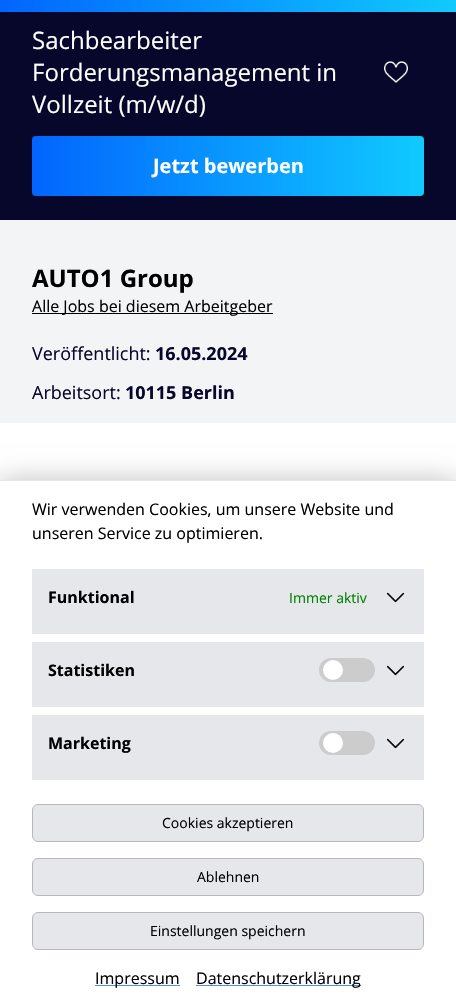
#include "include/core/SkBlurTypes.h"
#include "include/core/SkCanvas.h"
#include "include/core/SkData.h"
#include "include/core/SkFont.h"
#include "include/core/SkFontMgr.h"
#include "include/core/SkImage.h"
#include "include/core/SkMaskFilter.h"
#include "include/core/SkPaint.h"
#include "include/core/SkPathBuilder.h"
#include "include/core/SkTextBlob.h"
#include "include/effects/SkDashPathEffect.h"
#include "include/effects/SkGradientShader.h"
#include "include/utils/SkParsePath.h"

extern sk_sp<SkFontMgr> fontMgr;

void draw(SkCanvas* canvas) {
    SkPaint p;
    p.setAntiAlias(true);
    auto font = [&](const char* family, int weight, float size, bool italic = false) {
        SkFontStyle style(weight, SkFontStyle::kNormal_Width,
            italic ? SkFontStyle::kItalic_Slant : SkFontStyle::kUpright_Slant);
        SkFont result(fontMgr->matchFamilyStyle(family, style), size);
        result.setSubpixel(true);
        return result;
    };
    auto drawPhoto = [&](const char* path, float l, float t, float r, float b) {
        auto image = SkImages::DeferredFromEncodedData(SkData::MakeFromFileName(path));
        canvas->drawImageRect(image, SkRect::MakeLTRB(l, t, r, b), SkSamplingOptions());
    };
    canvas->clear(0xFFFFFFFF);
    {
        const SkColor colors[] = {0xFF0265FE, 0xFF10CAFF};
        const float stops[] = {0, 1};
        const SkPoint ends[] = {{0, 6}, {456, 6}};
        p.setShader(SkGradientShader::MakeLinear(ends, colors, stops, 2, SkTileMode::kClamp));
        p.setAlpha(255);
    }
    canvas->drawRect(SkRect::MakeLTRB(0, 0, 456, 12), p);
    p.setShader(nullptr);
    p.setColor(0xFF06072A);
    canvas->drawRect(SkRect::MakeLTRB(0, 12, 456, 220), p);
    auto font1 = font("Open Sans", 400, 24);
    p.setColor(0xFFFFFFFF);
    {
        const struct { const char* s; float x, y; } items[] = {
            {"Sachbearbeiter", 32, 49},
            {"Forderungsmanagement in", 32, 81},
            {"Vollzeit (m/w/d)", 32, 113},
        };
        for (auto [s, x, y] : items) {
            canvas->drawString(s, x, y, font1, p);
        }
    }
    drawPhoto("media/1.png", 384, 61, 408, 83);
    {
        const SkColor colors[] = {0xFF0265FE, 0xFF10CAFF};
        const float stops[] = {0, 1};
        const SkPoint ends[] = {{32, 166}, {424, 166}};
        p.setShader(SkGradientShader::MakeLinear(ends, colors, stops, 2, SkTileMode::kClamp));
        p.setAlpha(255);
    }
    canvas->drawRoundRect(SkRect::MakeLTRB(32, 136, 424, 196), 4, 4, p);
    auto font2 = font("Open Sans", 700, 20);
    p.setShader(nullptr);
    p.setColor(0xFFFFFFFF);
    canvas->drawString("Jetzt bewerben", 153, 173, font2, p);
    p.setColor(0xFFF3F4F6);
    canvas->drawRect(SkRect::MakeLTRB(0, 220, 456, 423), p);
    auto font3 = font("Open Sans", 700, 24);
    p.setColor(0xFF000000);
    canvas->drawString("AUTO1 Group", 32, 287, font3, p);
    canvas->drawRect(SkRect::MakeLTRB(32, 313, 273, 314), p);
    auto font4 = font("Open Sans", 400, 16);
    canvas->drawString("Alle Jobs bei diesem Arbeitgeber", 32, 312, font4, p);
    auto font5 = font("Open Sans", 400, 18);
    p.setColor(0xFF06072A);
    canvas->drawString("Veröffentlicht:", 32, 360, font5, p);
    auto font6 = font("Open Sans", 700, 18);
    canvas->drawString("16.05.2024", 155, 360, font6, p);
    canvas->drawString("Arbeitsort:", 32, 399, font5, p);
    canvas->drawString("10115 Berlin", 125, 399, font6, p);
    p.setColor(0xFFC0C0C0);
    p.setMaskFilter(SkMaskFilter::MakeBlur(kNormal_SkBlurStyle, 12.5f));
    canvas->drawRect(SkRect::MakeLTRB(0, 480, 456, 1006), p);
    p.setMaskFilter(nullptr);
    p.setColor(0xFFFFFFFF);
    canvas->drawRect(SkRect::MakeLTRB(0, 481, 456, 1006), p);
    p.setColor(0xFFE5E7EB);
    canvas->drawRect(SkRect::MakeLTRB(0, 480, 456, 481), p);
    p.setColor(0xFF000000);
    canvas->drawString("Wir verwenden Cookies, um unsere Website und", 32, 515, font4, p);
    canvas->drawString("unseren Service zu optimieren.", 32, 539, font4, p);
    p.setColor(0xFFE5E7EB);
    canvas->drawRect(SkRect::MakeLTRB(32, 569, 424, 634), p);
    auto font7 = font("Open Sans", 700, 16);
    p.setColor(0xFF000000);
    canvas->drawString("Funktional", 48, 603, font7, p);
    auto font8 = font("Open Sans", 400, 14);
    p.setColor(0xFF008000);
    canvas->drawString("Immer aktiv", 289, 603, font8, p);
    drawPhoto("media/2.png", 386, 592, 405, 603);
    p.setColor(0xFFE5E7EB);
    canvas->drawRect(SkRect::MakeLTRB(32, 642, 424, 707), p);
    p.setColor(0xFF000000);
    canvas->drawString("Statistiken", 48, 676, font7, p);
    p.setColor(0xFFCCCCCC);
    canvas->drawRoundRect(SkRect::MakeLTRB(319, 658, 375, 682), 12, 12, p);
    p.setColor(0xFFFFFFFF);
    canvas->drawCircle(333, 670, 10, p);
    drawPhoto("media/2.png", 386, 665, 405, 676);
    p.setColor(0xFFE5E7EB);
    canvas->drawRect(SkRect::MakeLTRB(32, 715, 424, 780), p);
    p.setColor(0xFF000000);
    canvas->drawString("Marketing", 48, 749, font7, p);
    p.setColor(0xFFCCCCCC);
    canvas->drawRoundRect(SkRect::MakeLTRB(319, 731, 375, 755), 12, 12, p);
    p.setColor(0xFFFFFFFF);
    canvas->drawCircle(333, 743, 10, p);
    drawPhoto("media/2.png", 386, 738, 405, 749);
    p.setColor(0xFFE5E7EB);
    canvas->drawRoundRect(SkRect::MakeLTRB(32.5f, 804.5f, 423.5f, 841.5f), 5.5f, 5.5f, p);
    p.setStyle(SkPaint::kStroke_Style);
    p.setStrokeWidth(1);
    p.setColor(0xFFB8B8B8);
    canvas->drawRoundRect(SkRect::MakeLTRB(32.5f, 804.5f, 423.5f, 841.5f), 5.5f, 5.5f, p);
    p.setStyle(SkPaint::kFill_Style);
    p.setColor(0xFF000000);
    canvas->drawString("Cookies akzeptieren", 162, 828, font8, p);
    p.setColor(0xFFE5E7EB);
    canvas->drawRoundRect(SkRect::MakeLTRB(32.5f, 858.5f, 423.5f, 895.5f), 5.5f, 5.5f, p);
    p.setStyle(SkPaint::kStroke_Style);
    p.setColor(0xFFB8B8B8);
    canvas->drawRoundRect(SkRect::MakeLTRB(32.5f, 858.5f, 423.5f, 895.5f), 5.5f, 5.5f, p);
    p.setStyle(SkPaint::kFill_Style);
    p.setColor(0xFF000000);
    canvas->drawString("Ablehnen", 197, 882, font8, p);
    p.setColor(0xFFE5E7EB);
    canvas->drawRoundRect(SkRect::MakeLTRB(32.5f, 912.5f, 423.5f, 949.5f), 5.5f, 5.5f, p);
    p.setStyle(SkPaint::kStroke_Style);
    p.setColor(0xFFB8B8B8);
    canvas->drawRoundRect(SkRect::MakeLTRB(32.5f, 912.5f, 423.5f, 949.5f), 5.5f, 5.5f, p);
    p.setStyle(SkPaint::kFill_Style);
    p.setColor(0xFF000000);
    canvas->drawString("Einstellungen speichern", 150, 936, font8, p);
    p.setColor(0xFF5090E2);
    canvas->drawRect(SkRect::MakeLTRB(95, 985, 180, 986), p);
    p.setColor(0xFF000000);
    canvas->drawString("Impressum", 95, 984, font4, p);
    p.setColor(0xFF5090E2);
    canvas->drawRect(SkRect::MakeLTRB(196, 985, 361, 986), p);
    p.setColor(0xFF000000);
    canvas->drawString("Datenschutzerklärung", 196, 984, font4, p);
}
